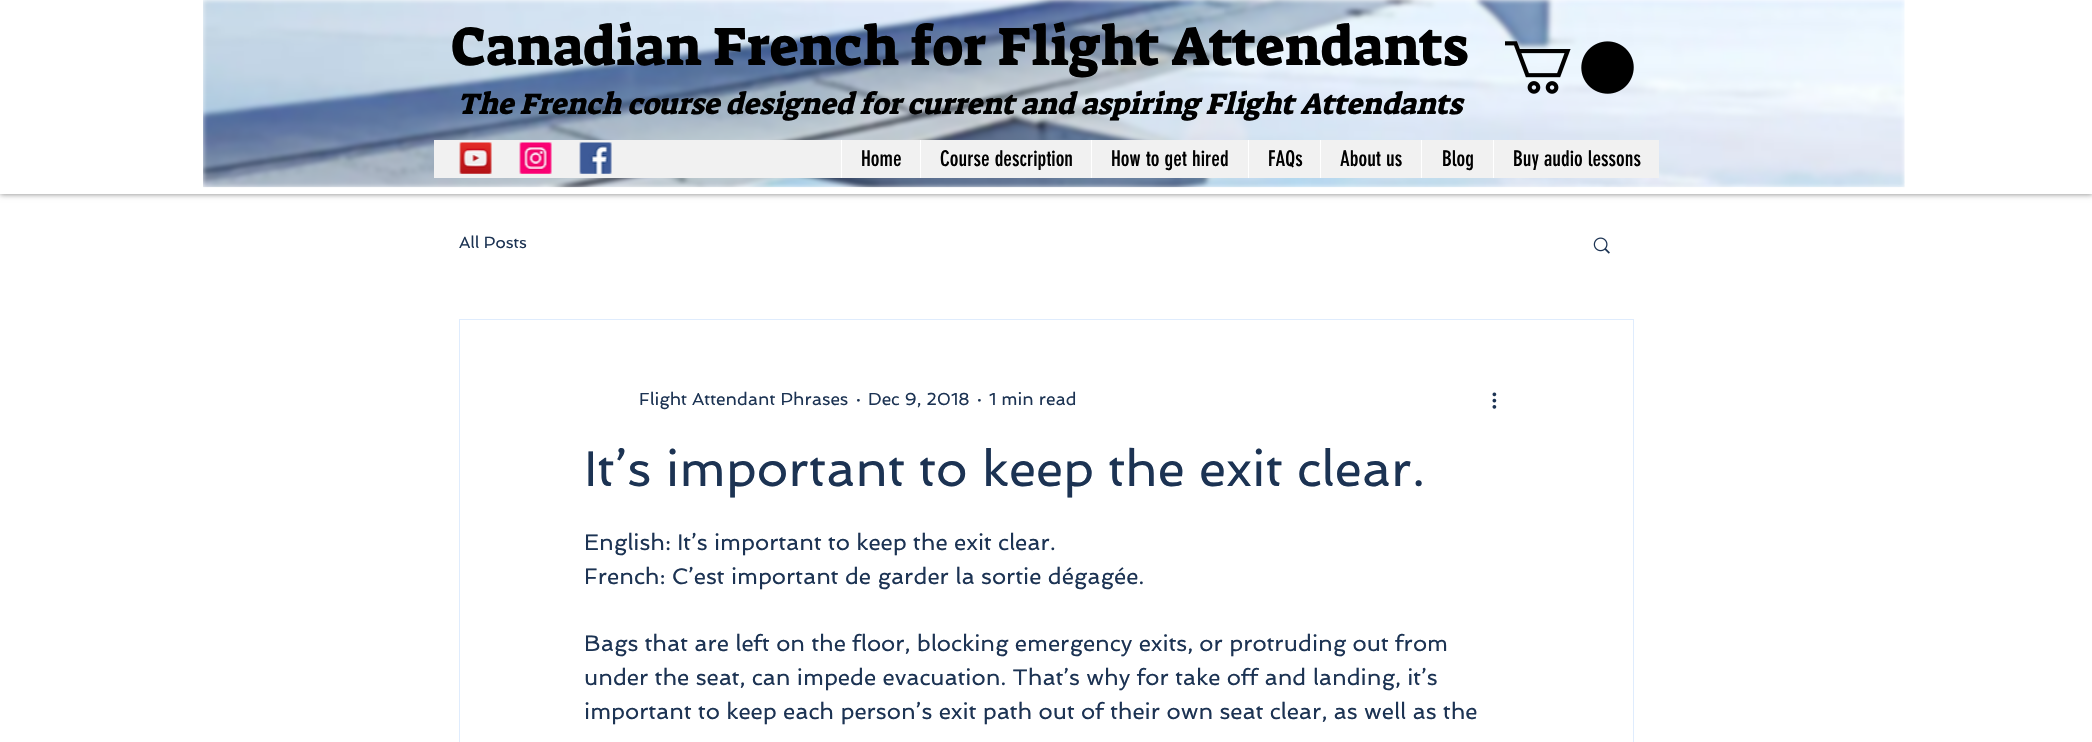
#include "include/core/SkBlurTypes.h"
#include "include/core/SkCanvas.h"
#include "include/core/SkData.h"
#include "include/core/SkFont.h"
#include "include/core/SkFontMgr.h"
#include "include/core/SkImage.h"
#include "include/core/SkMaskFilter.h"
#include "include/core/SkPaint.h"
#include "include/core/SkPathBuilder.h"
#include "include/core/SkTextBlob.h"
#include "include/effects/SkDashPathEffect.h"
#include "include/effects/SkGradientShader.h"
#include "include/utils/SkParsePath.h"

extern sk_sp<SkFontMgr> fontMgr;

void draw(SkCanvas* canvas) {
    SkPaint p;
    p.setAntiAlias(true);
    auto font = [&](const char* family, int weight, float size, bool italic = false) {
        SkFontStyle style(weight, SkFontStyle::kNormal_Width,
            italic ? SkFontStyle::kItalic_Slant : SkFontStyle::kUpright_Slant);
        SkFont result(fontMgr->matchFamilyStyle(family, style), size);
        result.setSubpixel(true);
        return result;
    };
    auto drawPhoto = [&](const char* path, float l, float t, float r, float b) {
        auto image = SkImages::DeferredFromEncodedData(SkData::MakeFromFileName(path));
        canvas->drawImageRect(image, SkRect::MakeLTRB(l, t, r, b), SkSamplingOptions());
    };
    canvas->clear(0xFFFFFFFF);
    p.setColor(0x80000000);
    p.setMaskFilter(SkMaskFilter::MakeBlur(kNormal_SkBlurStyle, 3));
    canvas->drawRect(SkRect::MakeLTRB(0, 0, 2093, 194), p);
    p.setMaskFilter(nullptr);
    p.setColor(0xFFFFFFFF);
    canvas->drawRect(SkRect::MakeLTRB(0, 0, 2092, 194), p);
    drawPhoto("media/1.png", 203, 0, 1905, 188);
    auto font1 = font("Suez One", 400, 55);
    p.setColor(0xFF000000);
    canvas->drawString("Canadian French for Flight Attendants", 451, 65, font1, p);
    auto font2 = font("Suez One", 400, 30, true);
    canvas->drawString("The French course designed for current and aspiring Flight Attendants", 457, 114, font2, p);
    drawPhoto("media/2.png", 1505, 41, 1634, 94);
    p.setColor(0xFFF1F1F1);
    canvas->drawRect(SkRect::MakeLTRB(434, 140, 1659, 178), p);
    drawPhoto("media/3.png", 459, 142, 492, 174);
    drawPhoto("media/4.png", 519, 142, 552, 174);
    drawPhoto("media/5.png", 579, 142, 612, 174);
    p.setColor(0xFFFFFFFF);
    canvas->drawRect(SkRect::MakeLTRB(841, 140, 842, 178), p);
    auto font3 = font("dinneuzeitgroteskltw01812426", 400, 21.25f);
    p.setColor(0xFF000000);
    canvas->drawString("Home", 861, 166, font3, p);
    p.setColor(0xFFFFFFFF);
    canvas->drawRect(SkRect::MakeLTRB(920, 140, 921, 178), p);
    p.setColor(0xFF000000);
    canvas->drawString("Course description", 940, 166, font3, p);
    p.setColor(0xFFFFFFFF);
    canvas->drawRect(SkRect::MakeLTRB(1091, 140, 1092, 178), p);
    p.setColor(0xFF000000);
    canvas->drawString("How to get hired", 1111, 166, font3, p);
    p.setColor(0xFFFFFFFF);
    canvas->drawRect(SkRect::MakeLTRB(1248, 140, 1249, 178), p);
    p.setColor(0xFF000000);
    canvas->drawString("FAQs", 1268, 166, font3, p);
    p.setColor(0xFFFFFFFF);
    canvas->drawRect(SkRect::MakeLTRB(1320, 140, 1321, 178), p);
    p.setColor(0xFF000000);
    canvas->drawString("About us", 1340, 166, font3, p);
    p.setColor(0xFFFFFFFF);
    canvas->drawRect(SkRect::MakeLTRB(1421, 140, 1422, 178), p);
    p.setColor(0xFF000000);
    canvas->drawString("Blog", 1442, 166, font3, p);
    p.setColor(0xFFFFFFFF);
    canvas->drawRect(SkRect::MakeLTRB(1493, 140, 1494, 178), p);
    p.setColor(0xFF000000);
    canvas->drawString("Buy audio lessons", 1513, 166, font3, p);
    auto font4 = font("Spinnaker", 400, 16.25f);
    p.setColor(0xFF1C3353);
    canvas->drawString("All Posts", 459, 248, font4, p);
    drawPhoto("media/6.png", 1593, 237, 1610, 254);
    p.setStyle(SkPaint::kStroke_Style);
    p.setStrokeWidth(1);
    p.setColor(0xFFDFECFD);
    canvas->drawRect(SkRect::MakeLTRB(459.5f, 319.5f, 1633.5f, 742.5f), p);
    auto font5 = font("Spinnaker", 400, 17.5f);
    p.setStyle(SkPaint::kFill_Style);
    p.setColor(0xFF1C3353);
    {
        const struct { const char* s; float x, y; } items[] = {
            {"Flight Attendant Phrases", 639, 405},
            {"·", 856, 405},
            {"Dec 9, 2018", 868, 405},
            {"·", 977, 405},
            {"1 min read", 989, 405},
        };
        for (auto [s, x, y] : items) {
            canvas->drawString(s, x, y, font5, p);
        }
    }
    drawPhoto("media/7.png", 1492, 392, 1497, 409);
    auto font6 = font("Spinnaker", 400, 50);
    canvas->drawString("It’s important to keep the exit clear.", 584, 486, font6, p);
    auto font7 = font("Spinnaker", 400, 22.5f);
    {
        const struct { const char* s; float x, y; } items[] = {
            {"English: It’s important to keep the exit clear.", 584, 550},
            {"French: C’est important de garder la sortie dégagée.", 584, 584},
            {"Bags that are left on the floor, blocking emergency exits, or protruding out from", 584, 651},
            {"under the seat, can impede evacuation. That’s why for take off and landing, it’s", 584, 685},
            {"important to keep each person’s exit path out of their own seat clear, as well as the", 584, 719},
        };
        for (auto [s, x, y] : items) {
            canvas->drawString(s, x, y, font7, p);
        }
    }
}
